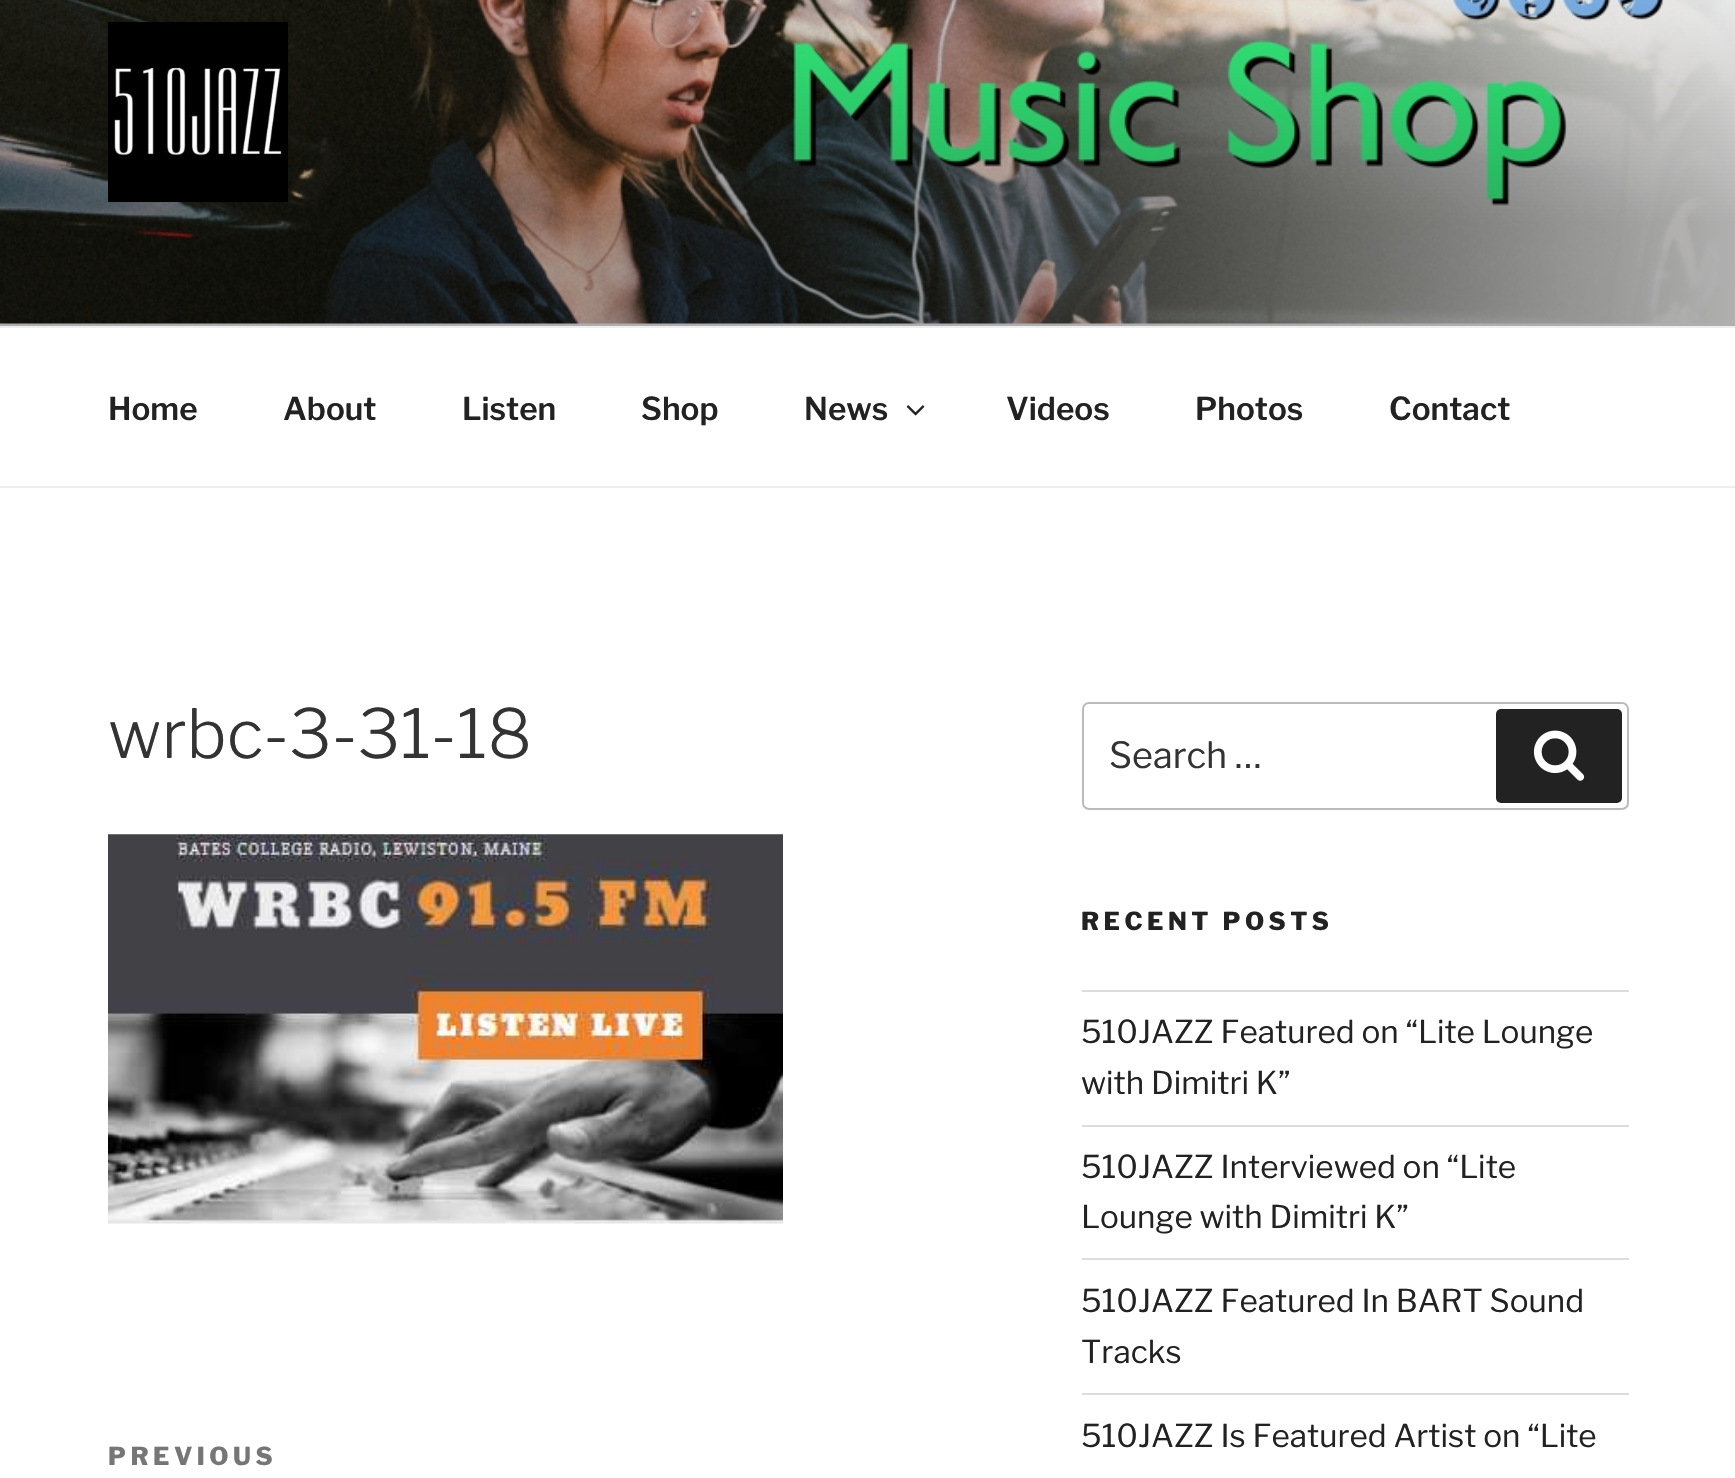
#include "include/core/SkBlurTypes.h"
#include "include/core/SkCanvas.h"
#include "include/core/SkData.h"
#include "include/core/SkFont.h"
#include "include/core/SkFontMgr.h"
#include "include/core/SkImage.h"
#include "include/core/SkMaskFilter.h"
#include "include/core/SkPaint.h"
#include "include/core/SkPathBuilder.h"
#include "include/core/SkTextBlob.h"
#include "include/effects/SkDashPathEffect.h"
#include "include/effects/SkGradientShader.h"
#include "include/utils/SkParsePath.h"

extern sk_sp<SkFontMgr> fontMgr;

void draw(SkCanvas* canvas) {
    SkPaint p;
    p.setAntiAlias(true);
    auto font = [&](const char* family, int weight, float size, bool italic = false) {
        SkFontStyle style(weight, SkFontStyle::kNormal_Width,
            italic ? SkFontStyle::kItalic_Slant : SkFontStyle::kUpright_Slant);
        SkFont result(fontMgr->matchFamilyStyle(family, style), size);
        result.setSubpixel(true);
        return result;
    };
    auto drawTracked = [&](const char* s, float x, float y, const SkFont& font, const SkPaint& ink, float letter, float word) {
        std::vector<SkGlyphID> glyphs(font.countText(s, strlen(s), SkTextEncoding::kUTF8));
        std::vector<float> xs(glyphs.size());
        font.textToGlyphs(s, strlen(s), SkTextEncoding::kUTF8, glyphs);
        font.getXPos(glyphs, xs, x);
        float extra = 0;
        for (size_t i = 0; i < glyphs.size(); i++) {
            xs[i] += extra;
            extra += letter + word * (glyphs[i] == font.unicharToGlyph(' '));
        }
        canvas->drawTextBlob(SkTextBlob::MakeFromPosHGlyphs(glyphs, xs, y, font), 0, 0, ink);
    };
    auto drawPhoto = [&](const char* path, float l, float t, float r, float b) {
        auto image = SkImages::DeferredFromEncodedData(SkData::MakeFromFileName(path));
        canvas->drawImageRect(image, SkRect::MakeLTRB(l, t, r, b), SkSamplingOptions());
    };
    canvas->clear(0xFFFFFFFF);
    p.setColor(0xFFFAFAFA);
    canvas->drawRect(SkRect::MakeLTRB(0, 323, 1735, 326), p);
    drawPhoto("media/1.png", 0, 0, 1735, 324);
    {
        const SkColor colors[] = {0x00000000, 0x4D000000, 0x4D000000};
        const float stops[] = {0, 0.75f, 1};
        const SkPoint ends[] = {{869, -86}, {869, 326}};
        p.setShader(SkGradientShader::MakeLinear(ends, colors, stops, 3, SkTileMode::kClamp));
        p.setAlpha(255);
    }
    canvas->drawRect(SkRect::MakeLTRB(0, 0, 1735, 326), p);
    drawPhoto("media/2.png", 108, 22, 288, 202);
    p.setShader(nullptr);
    p.setColor(0xFFEEEEEE);
    canvas->drawRect(SkRect::MakeLTRB(0, 326, 1735, 328), p);
    canvas->drawRect(SkRect::MakeLTRB(0, 486, 1735, 488), p);
    auto font1 = font("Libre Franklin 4", 100, 31.5f);
    p.setColor(0xFF222222);
    {
        const struct { const char* s; float x, y; } items[] = {
            {"Home", 108, 420},
            {"About", 283, 420},
            {"Listen", 462, 420},
            {"Shop", 641, 420},
            {"News", 804, 420},
        };
        for (auto [s, x, y] : items) {
            canvas->drawString(s, x, y, font1, p);
        }
    }
    drawPhoto("media/3.png", 906, 405, 925, 416);
    {
        const struct { const char* s; float x, y; } items[] = {
            {"Videos", 1006, 420},
            {"Photos", 1195, 420},
            {"Contact", 1389, 420},
        };
        for (auto [s, x, y] : items) {
            canvas->drawString(s, x, y, font1, p);
        }
    }
    auto font2 = font("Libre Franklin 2", 100, 67.5f);
    p.setColor(0xFF333333);
    canvas->drawString("wrbc-3-31-18", 108, 758, font2, p);
    drawPhoto("media/4.png", 108, 834, 783, 1224);
    auto font3 = font("Libre Franklin", 100, 24.75f);
    p.setColor(0xFF767676);
    drawTracked("PREVIOUS", 108, 1465, font3, p, 4.5f, 0);
    p.setStyle(SkPaint::kStroke_Style);
    p.setStrokeWidth(2);
    p.setColor(0xFFBBBBBB);
    canvas->drawRoundRect(SkRect::MakeLTRB(1083, 703, 1628, 809), 6, 6, p);
    auto font4 = font("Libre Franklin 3", 100, 36);
    p.setStyle(SkPaint::kFill_Style);
    p.setColor(0xFF333333);
    canvas->drawString("Search …", 1109, 768, font4, p);
    p.setColor(0xFF222222);
    canvas->drawRoundRect(SkRect::MakeLTRB(1496, 709, 1622, 803), 5, 5, p);
    drawPhoto("media/5.png", 1533, 730, 1585, 781);
    drawTracked("RECENT POSTS", 1081, 930, font3, p, 4.5f, 0);
    p.setColor(0xFFDDDDDD);
    canvas->drawRect(SkRect::MakeLTRB(1082, 990, 1629, 992), p);
    canvas->drawRect(SkRect::MakeLTRB(1082, 1125, 1629, 1127), p);
    auto font5 = font("Libre Franklin 3", 100, 31.5f);
    p.setColor(0xFF222222);
    canvas->drawString("510JAZZ Featured on “Lite Lounge", 1081, 1043, font5, p);
    canvas->drawString("with Dimitri K”", 1081, 1094, font5, p);
    p.setColor(0xFFDDDDDD);
    canvas->drawRect(SkRect::MakeLTRB(1082, 1258, 1629, 1260), p);
    p.setColor(0xFF222222);
    canvas->drawString("510JAZZ Interviewed on “Lite", 1081, 1178, font5, p);
    canvas->drawString("Lounge with Dimitri K”", 1081, 1228, font5, p);
    p.setColor(0xFFDDDDDD);
    canvas->drawRect(SkRect::MakeLTRB(1082, 1393, 1629, 1395), p);
    p.setColor(0xFF222222);
    {
        const struct { const char* s; float x, y; } items[] = {
            {"510JAZZ Featured In BART Sound", 1081, 1312},
            {"Tracks", 1081, 1363},
            {"510JAZZ Is Featured Artist on “Lite", 1081, 1447},
        };
        for (auto [s, x, y] : items) {
            canvas->drawString(s, x, y, font5, p);
        }
    }
}
